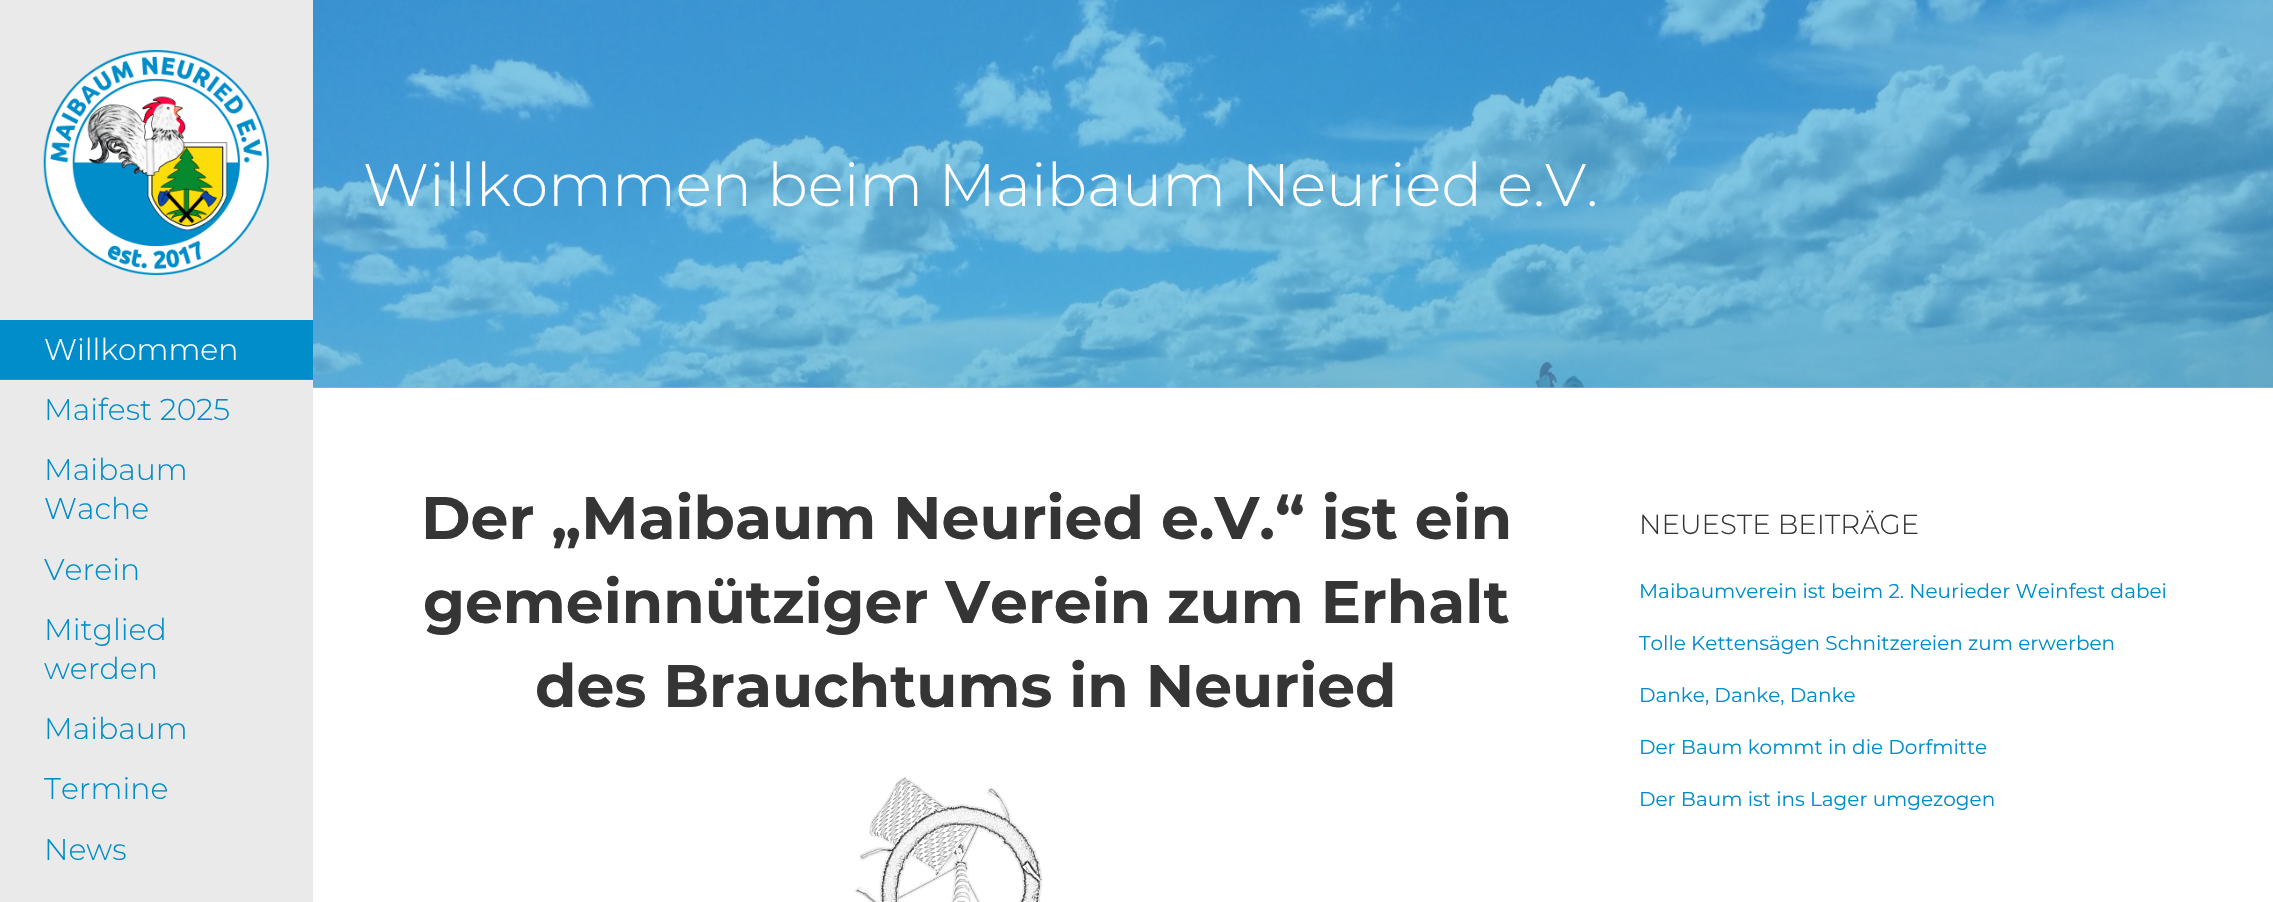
#include "include/core/SkBlurTypes.h"
#include "include/core/SkCanvas.h"
#include "include/core/SkData.h"
#include "include/core/SkFont.h"
#include "include/core/SkFontMgr.h"
#include "include/core/SkImage.h"
#include "include/core/SkMaskFilter.h"
#include "include/core/SkPaint.h"
#include "include/core/SkPathBuilder.h"
#include "include/core/SkTextBlob.h"
#include "include/effects/SkDashPathEffect.h"
#include "include/effects/SkGradientShader.h"
#include "include/utils/SkParsePath.h"

extern sk_sp<SkFontMgr> fontMgr;

void draw(SkCanvas* canvas) {
    SkPaint p;
    p.setAntiAlias(true);
    auto font = [&](const char* family, int weight, float size, bool italic = false) {
        SkFontStyle style(weight, SkFontStyle::kNormal_Width,
            italic ? SkFontStyle::kItalic_Slant : SkFontStyle::kUpright_Slant);
        SkFont result(fontMgr->matchFamilyStyle(family, style), size);
        result.setSubpixel(true);
        return result;
    };
    auto drawPhoto = [&](const char* path, float l, float t, float r, float b) {
        auto image = SkImages::DeferredFromEncodedData(SkData::MakeFromFileName(path));
        canvas->drawImageRect(image, SkRect::MakeLTRB(l, t, r, b), SkSamplingOptions());
    };
    canvas->clear(0xFFFFFFFF);
    p.setColor(0xFF80C6E4);
    canvas->drawRect(SkRect::MakeLTRB(313, 387, 2273, 388), p);
    drawPhoto("media/1.png", 313, 0, 2273, 388);
    auto font1 = font("Montserrat", 300, 60);
    p.setColor(0xFFFFFFFF);
    canvas->drawString("Willkommen beim Maibaum Neuried e.V.", 363, 206, font1, p);
    p.setColor(0xFFEAEAEA);
    canvas->drawRect(SkRect::MakeLTRB(0, 0, 313, 902), p);
    drawPhoto("media/2.png", 43, 50, 269, 275);
    p.setColor(0xFF008DC9);
    canvas->drawRect(SkRect::MakeLTRB(0, 320, 313, 379), p);
    p.setColor(0xFF1A98CE);
    canvas->drawRect(SkRect::MakeLTRB(0, 379, 313, 380), p);
    auto font2 = font("Montserrat", 300, 30);
    p.setColor(0xFFFFFFFF);
    canvas->drawString("Willkommen", 44, 360, font2, p);
    p.setColor(0xFF008DC9);
    {
        const struct { const char* s; float x, y; } items[] = {
            {"Maifest 2025", 44, 420},
            {"Maibaum", 44, 480},
            {"Wache", 44, 519},
            {"Verein", 44, 580},
            {"Mitglied", 44, 640},
            {"werden", 44, 679},
            {"Maibaum", 44, 739},
            {"Termine", 44, 799},
            {"News", 44, 860},
        };
        for (auto [s, x, y] : items) {
            canvas->drawString(s, x, y, font2, p);
        }
    }
    auto font3 = font("Montserrat", 700, 60);
    p.setColor(0xFF353535);
    {
        const struct { const char* s; float x, y; } items[] = {
            {"Der „Maibaum Neuried e.V.“ ist ein", 421, 539},
            {"gemeinnütziger Verein", 423, 623},
            {"zum Erhalt", 1167, 623},
            {"des Brauchtums in Neuried", 535, 707},
        };
        for (auto [s, x, y] : items) {
            canvas->drawString(s, x, y, font3, p);
        }
    }
    drawPhoto("media/3.png", 854, 776, 1043, 902);
    auto font4 = font("Montserrat", 300, 27.5f);
    canvas->drawString("NEUESTE BEITRÄGE", 1639, 534, font4, p);
    auto font5 = font("Montserrat", 400, 20);
    p.setColor(0xFF008DC9);
    {
        const struct { const char* s; float x, y; } items[] = {
            {"Maibaumverein ist beim 2. Neurieder Weinfest dabei", 1639, 598},
            {"Tolle Kettensägen Schnitzereien zum erwerben", 1639, 650},
            {"Danke, Danke, Danke", 1639, 702},
            {"Der Baum kommt in die Dorfmitte", 1639, 754},
            {"Der Baum ist ins Lager umgezogen", 1639, 806},
        };
        for (auto [s, x, y] : items) {
            canvas->drawString(s, x, y, font5, p);
        }
    }
}
